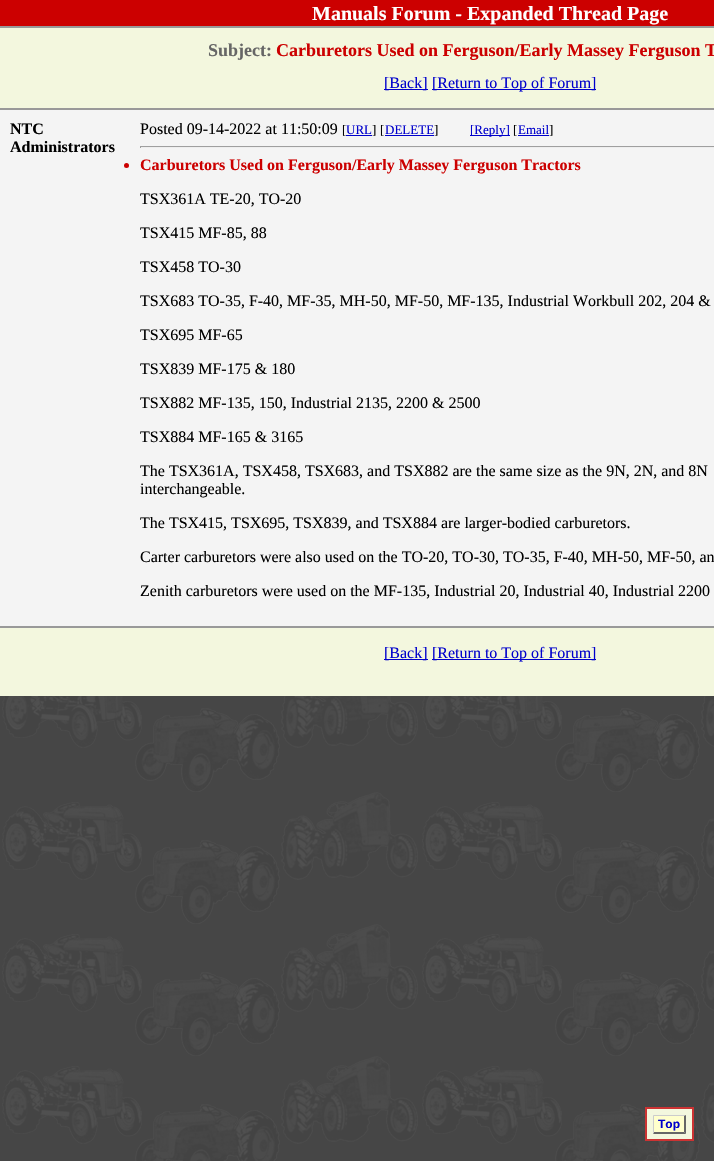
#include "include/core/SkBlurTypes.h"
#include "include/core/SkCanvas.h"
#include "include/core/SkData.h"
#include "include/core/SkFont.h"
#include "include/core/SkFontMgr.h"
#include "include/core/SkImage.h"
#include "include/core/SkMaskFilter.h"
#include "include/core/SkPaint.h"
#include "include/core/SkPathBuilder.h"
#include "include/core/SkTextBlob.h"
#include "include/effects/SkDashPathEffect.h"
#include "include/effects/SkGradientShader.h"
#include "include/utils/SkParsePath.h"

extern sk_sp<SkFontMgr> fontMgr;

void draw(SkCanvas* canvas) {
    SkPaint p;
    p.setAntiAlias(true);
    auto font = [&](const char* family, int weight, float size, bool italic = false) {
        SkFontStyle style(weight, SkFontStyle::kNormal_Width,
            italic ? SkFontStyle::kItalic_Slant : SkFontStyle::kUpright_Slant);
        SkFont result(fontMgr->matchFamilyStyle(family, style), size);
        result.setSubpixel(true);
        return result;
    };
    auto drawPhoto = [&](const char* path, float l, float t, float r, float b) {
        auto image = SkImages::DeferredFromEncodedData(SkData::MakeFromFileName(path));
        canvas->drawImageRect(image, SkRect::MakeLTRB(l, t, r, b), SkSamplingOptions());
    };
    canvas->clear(0xFF464646);
    drawPhoto("media/1.png", 2, 696, 714, 1161);
    {
        const struct { float l, t, r, b; SkColor color; } items[] = {
            {0, 28, 714, 696, 0xFFF3F7DE},
            {0, 0, 714, 26, 0xFFCC0000},
            {0, 26, 714, 28, 0xFF999999},
        };
        for (auto [l, t, r, b, color] : items) {
            p.setColor(color);
            canvas->drawRect(SkRect::MakeLTRB(l, t, r, b), p);
        }
    }
    auto font1 = font("Liberation Serif", 700, 20);
    p.setColor(0xFFFFFFFF);
    canvas->drawString("Manuals Forum - Expanded Thread Page", 312, 20, font1, p);
    auto font2 = font("Liberation Serif", 700, 18);
    p.setColor(0xFF666666);
    canvas->drawString("Subject:", 208, 56, font2, p);
    p.setColor(0xFFCC0000);
    canvas->drawString("Carburetors Used on Ferguson/Early Massey Ferguson T", 276, 56, font2, p);
    p.setColor(0xFF0000CC);
    canvas->drawRect(SkRect::MakeLTRB(384, 89, 428, 90), p);
    auto font3 = font("Liberation Serif", 400, 16);
    canvas->drawString("[Back]", 384, 88, font3, p);
    canvas->drawRect(SkRect::MakeLTRB(432, 89, 596, 90), p);
    canvas->drawString("[Return to Top of Forum]", 432, 88, font3, p);
    {
        const struct { float l, t, r, b; SkColor color; } items[] = {
            {0, 108, 714, 110, 0xFF999999},
            {0, 626, 714, 628, 0xFF999999},
            {0, 110, 714, 626, 0xFFF4F4F4},
        };
        for (auto [l, t, r, b, color] : items) {
            p.setColor(color);
            canvas->drawRect(SkRect::MakeLTRB(l, t, r, b), p);
        }
    }
    auto font4 = font("Liberation Serif", 700, 16);
    p.setColor(0xFF000000);
    canvas->drawString("NTC", 10, 134, font4, p);
    canvas->drawString("Administrators", 10, 152, font4, p);
    canvas->drawString("Posted 09-14-2022 at 11:50:09", 140, 134, font3, p);
    auto font5 = font("Liberation Serif", 400, 13);
    canvas->drawString("[", 342, 134, font5, p);
    p.setColor(0xFF0000CC);
    canvas->drawRect(SkRect::MakeLTRB(346, 135, 372, 136), p);
    canvas->drawString("URL", 346, 134, font5, p);
    p.setColor(0xFF000000);
    canvas->drawString("]", 372, 134, font5, p);
    canvas->drawString("[", 380, 134, font5, p);
    p.setColor(0xFF0000CC);
    canvas->drawRect(SkRect::MakeLTRB(385, 135, 434, 136), p);
    canvas->drawString("DELETE", 385, 134, font5, p);
    p.setColor(0xFF000000);
    canvas->drawString("]", 434, 134, font5, p);
    p.setColor(0xFF0000CC);
    canvas->drawRect(SkRect::MakeLTRB(470, 135, 510, 136), p);
    canvas->drawString("[Reply]", 470, 134, font5, p);
    p.setColor(0xFF000000);
    canvas->drawString("[", 513, 134, font5, p);
    p.setColor(0xFF0000CC);
    canvas->drawRect(SkRect::MakeLTRB(518, 135, 549, 136), p);
    canvas->drawString("Email", 518, 134, font5, p);
    p.setColor(0xFF000000);
    canvas->drawString("]", 549, 134, font5, p);
    {
        const struct { float l, t, r, b; SkColor color; } items[] = {
            {140, 146, 714, 147, 0xFF9F9F9F},
            {140, 147, 714, 148, 0xFFEEEEEE},
            {140, 146, 141, 148, 0xFF9F9F9F},
        };
        for (auto [l, t, r, b, color] : items) {
            p.setColor(color);
            canvas->drawRect(SkRect::MakeLTRB(l, t, r, b), p);
        }
    }
    p.setColor(0xFFCC0000);
    canvas->drawCircle(126.5f, 165.5f, 2.5f, p);
    canvas->drawString("Carburetors Used on Ferguson/Early Massey Ferguson Tractors", 140, 170, font4, p);
    p.setColor(0xFF000000);
    {
        const struct { const char* s; float x, y; } items[] = {
            {"TSX361A TE-20, TO-20", 140, 204},
            {"TSX415 MF-85, 88", 140, 238},
            {"TSX458 TO-30", 140, 272},
            {"TSX683 TO-35, F-40, MF-35, MH-50, MF-50, MF-135, Industrial Workbull 202, 204 &", 140, 306},
            {"TSX695 MF-65", 140, 340},
            {"TSX839 MF-175 & 180", 140, 374},
            {"TSX882 MF-135, 150, Industrial 2135, 2200 & 2500", 140, 408},
            {"TSX884 MF-165 & 3165", 140, 442},
            {"The TSX361A, TSX458, TSX683, and TSX882 are the same size as the 9N, 2N, and 8N", 140, 476},
            {"interchangeable.", 140, 494},
            {"The TSX415, TSX695, TSX839, and TSX884 are larger-bodied carburetors.", 140, 528},
            {"Carter carburetors were also used on the TO-20, TO-30, TO-35, F-40, MH-50, MF-50, an", 140, 562},
            {"Zenith carburetors were used on the MF-135, Industrial 20, Industrial 40, Industrial 2200", 140, 596},
        };
        for (auto [s, x, y] : items) {
            canvas->drawString(s, x, y, font3, p);
        }
    }
    p.setColor(0xFF0000CC);
    canvas->drawRect(SkRect::MakeLTRB(384, 659, 428, 660), p);
    canvas->drawString("[Back]", 384, 658, font3, p);
    canvas->drawRect(SkRect::MakeLTRB(432, 659, 596, 660), p);
    canvas->drawString("[Return to Top of Forum]", 432, 658, font3, p);
    p.setColor(0xFFF3F7DE);
    canvas->drawRect(SkRect::MakeLTRB(646, 1108, 693, 1140), p);
    p.setStyle(SkPaint::kStroke_Style);
    p.setStrokeWidth(2);
    p.setColor(0xFFCC3333);
    canvas->drawRect(SkRect::MakeLTRB(646, 1108, 693, 1140), p);
    p.setStyle(SkPaint::kFill_Style);
    p.setColor(0xFFFFFFCC);
    canvas->drawRect(SkRect::MakeLTRB(654, 1116, 684, 1132), p);
    auto font6 = font("Liberation Sans", 700, 12);
    p.setColor(0xFF0000CC);
    canvas->drawString("Top", 658, 1128, font6, p);
    p.setColor(0xFFCCCCCC);
    canvas->drawPath(SkPathBuilder().moveTo(653, 1115).lineTo(686, 1115).lineTo(684, 1116).lineTo(654, 1116).close().detach(), p);
    p.setColor(0xFF666666);
    canvas->drawPath(SkPathBuilder().moveTo(686, 1115).lineTo(686, 1134).lineTo(684, 1132).lineTo(684, 1116).close().detach(), p);
    canvas->drawPath(SkPathBuilder().moveTo(686, 1134).lineTo(653, 1134).lineTo(654, 1132).lineTo(684, 1132).close().detach(), p);
    p.setColor(0xFFCCCCCC);
    canvas->drawPath(SkPathBuilder().moveTo(653, 1134).lineTo(653, 1115).lineTo(654, 1116).lineTo(654, 1132).close().detach(), p);
}
